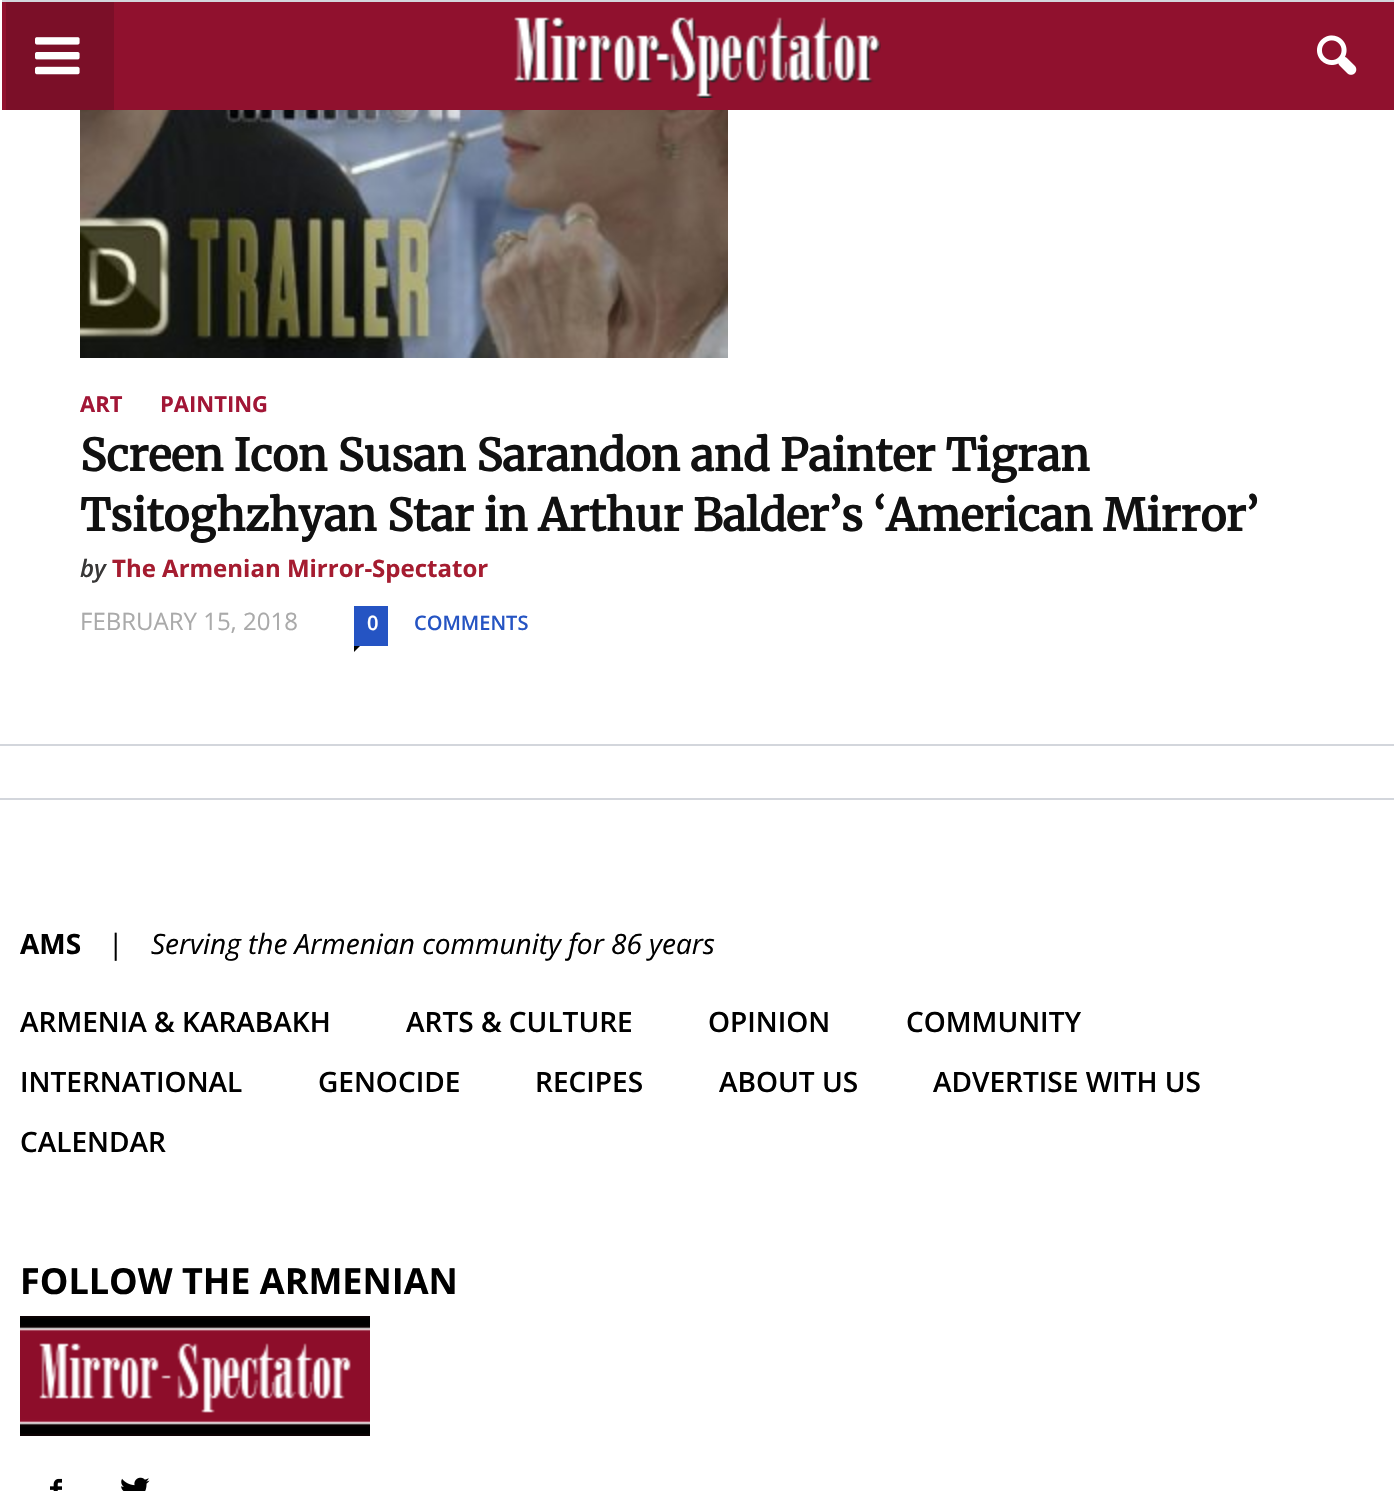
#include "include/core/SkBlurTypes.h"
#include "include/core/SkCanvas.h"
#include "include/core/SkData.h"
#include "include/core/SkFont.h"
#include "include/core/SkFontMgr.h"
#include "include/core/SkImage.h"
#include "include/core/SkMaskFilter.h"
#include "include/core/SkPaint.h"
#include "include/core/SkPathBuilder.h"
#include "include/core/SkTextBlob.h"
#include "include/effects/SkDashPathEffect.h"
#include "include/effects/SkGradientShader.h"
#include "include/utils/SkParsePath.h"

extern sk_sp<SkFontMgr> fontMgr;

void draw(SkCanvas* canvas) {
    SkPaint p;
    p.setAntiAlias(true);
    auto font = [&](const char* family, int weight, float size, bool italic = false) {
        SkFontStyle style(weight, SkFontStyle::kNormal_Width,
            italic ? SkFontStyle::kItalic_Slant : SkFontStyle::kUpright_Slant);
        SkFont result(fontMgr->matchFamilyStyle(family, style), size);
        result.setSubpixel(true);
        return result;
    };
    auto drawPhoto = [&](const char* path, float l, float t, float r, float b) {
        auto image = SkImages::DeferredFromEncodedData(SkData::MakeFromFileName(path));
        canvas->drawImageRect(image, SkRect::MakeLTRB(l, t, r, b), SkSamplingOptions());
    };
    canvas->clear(0xFFFFFFFF);
    {
        const struct { float l, t, r, b; SkColor color; } items[] = {
            {2, 0, 1394, 2, 0xFFD3D6DC},
            {2, 2, 1394, 110, 0xFF90112E},
            {6, 2, 114, 110, 0xFF7B0F28},
        };
        for (auto [l, t, r, b, color] : items) {
            p.setColor(color);
            canvas->drawRect(SkRect::MakeLTRB(l, t, r, b), p);
        }
    }
    drawPhoto("media/1.png", 35, 37, 80, 75);
    drawPhoto("media/2.png", 514, 17, 881, 98);
    drawPhoto("media/3.png", 1317, 35, 1357, 75);
    p.setColor(0xFFD3D6DC);
    canvas->drawRect(SkRect::MakeLTRB(0, 744, 1394, 746), p);
    drawPhoto("media/4.png", 80, 110, 728, 358);
    auto font1 = font("Open Sans", 700, 22);
    p.setColor(0xFFA21636);
    canvas->drawString("ART", 80, 412, font1, p);
    canvas->drawString("PAINTING", 160, 412, font1, p);
    auto font2 = font("Merriweather", 700, 44);
    p.setColor(0xFF111111);
    canvas->drawString("Screen Icon Susan Sarandon and Painter Tigran", 80, 471, font2, p);
    canvas->drawString("Tsitoghzhyan Star in Arthur Balder’s ‘American Mirror’", 80, 531, font2, p);
    auto font3 = font("Open Sans", 600, 24, true);
    p.setColor(0xFF383737);
    canvas->drawString("by", 80, 577, font3, p);
    auto font4 = font("Open Sans", 700, 24);
    p.setColor(0xFFA51C30);
    canvas->drawString("The Armenian Mirror-Spectator", 112, 577, font4, p);
    auto font5 = font("Open Sans", 400, 24);
    p.setColor(0xFFAAAAAA);
    canvas->drawString("FEBRUARY 15, 2018", 80, 630, font5, p);
    p.setColor(0xFF2554C3);
    canvas->drawRect(SkRect::MakeLTRB(354, 606, 388, 646), p);
    auto font6 = font("Open Sans", 600, 20);
    p.setColor(0xFFFFFFFF);
    canvas->drawString("0", 367, 630, font6, p);
    p.setColor(0xFF2554C3);
    canvas->drawString("COMMENTS", 414, 630, font6, p);
    p.setColor(0xFF000000);
    canvas->drawPath(SkPathBuilder().moveTo(354, 646).lineTo(360, 646).lineTo(354, 652).close().detach(), p);
    p.setColor(0xFFD3D6DC);
    canvas->drawRect(SkRect::MakeLTRB(0, 798, 1394, 800), p);
    auto font7 = font("Open Sans", 700, 28);
    p.setColor(0xFF000000);
    canvas->drawString("AMS", 20, 954, font7, p);
    auto font8 = font("Open Sans", 400, 28);
    canvas->drawString("|", 108, 954, font8, p);
    auto font9 = font("Open Sans", 400, 28, true);
    canvas->drawString("Serving the Armenian community for 86 years", 151, 954, font9, p);
    auto font10 = font("Open Sans", 600, 28);
    {
        const struct { const char* s; float x, y; } items[] = {
            {"ARMENIA & KARABAKH", 20, 1032},
            {"ARTS & CULTURE", 406, 1032},
            {"OPINION", 708, 1032},
            {"COMMUNITY", 906, 1032},
            {"INTERNATIONAL", 20, 1092},
            {"GENOCIDE", 318, 1092},
            {"RECIPES", 535, 1092},
            {"ABOUT US", 719, 1092},
            {"ADVERTISE WITH US", 933, 1092},
            {"CALENDAR", 20, 1152},
        };
        for (auto [s, x, y] : items) {
            canvas->drawString(s, x, y, font10, p);
        }
    }
    auto font11 = font("Open Sans", 700, 36);
    canvas->drawString("FOLLOW THE ARMENIAN", 20, 1294, font11, p);
    drawPhoto("media/5.png", 20, 1316, 370, 1436);
    drawPhoto("media/6.png", 50, 1478, 62, 1491);
    drawPhoto("media/7.png", 121, 1477, 150, 1491);
}
